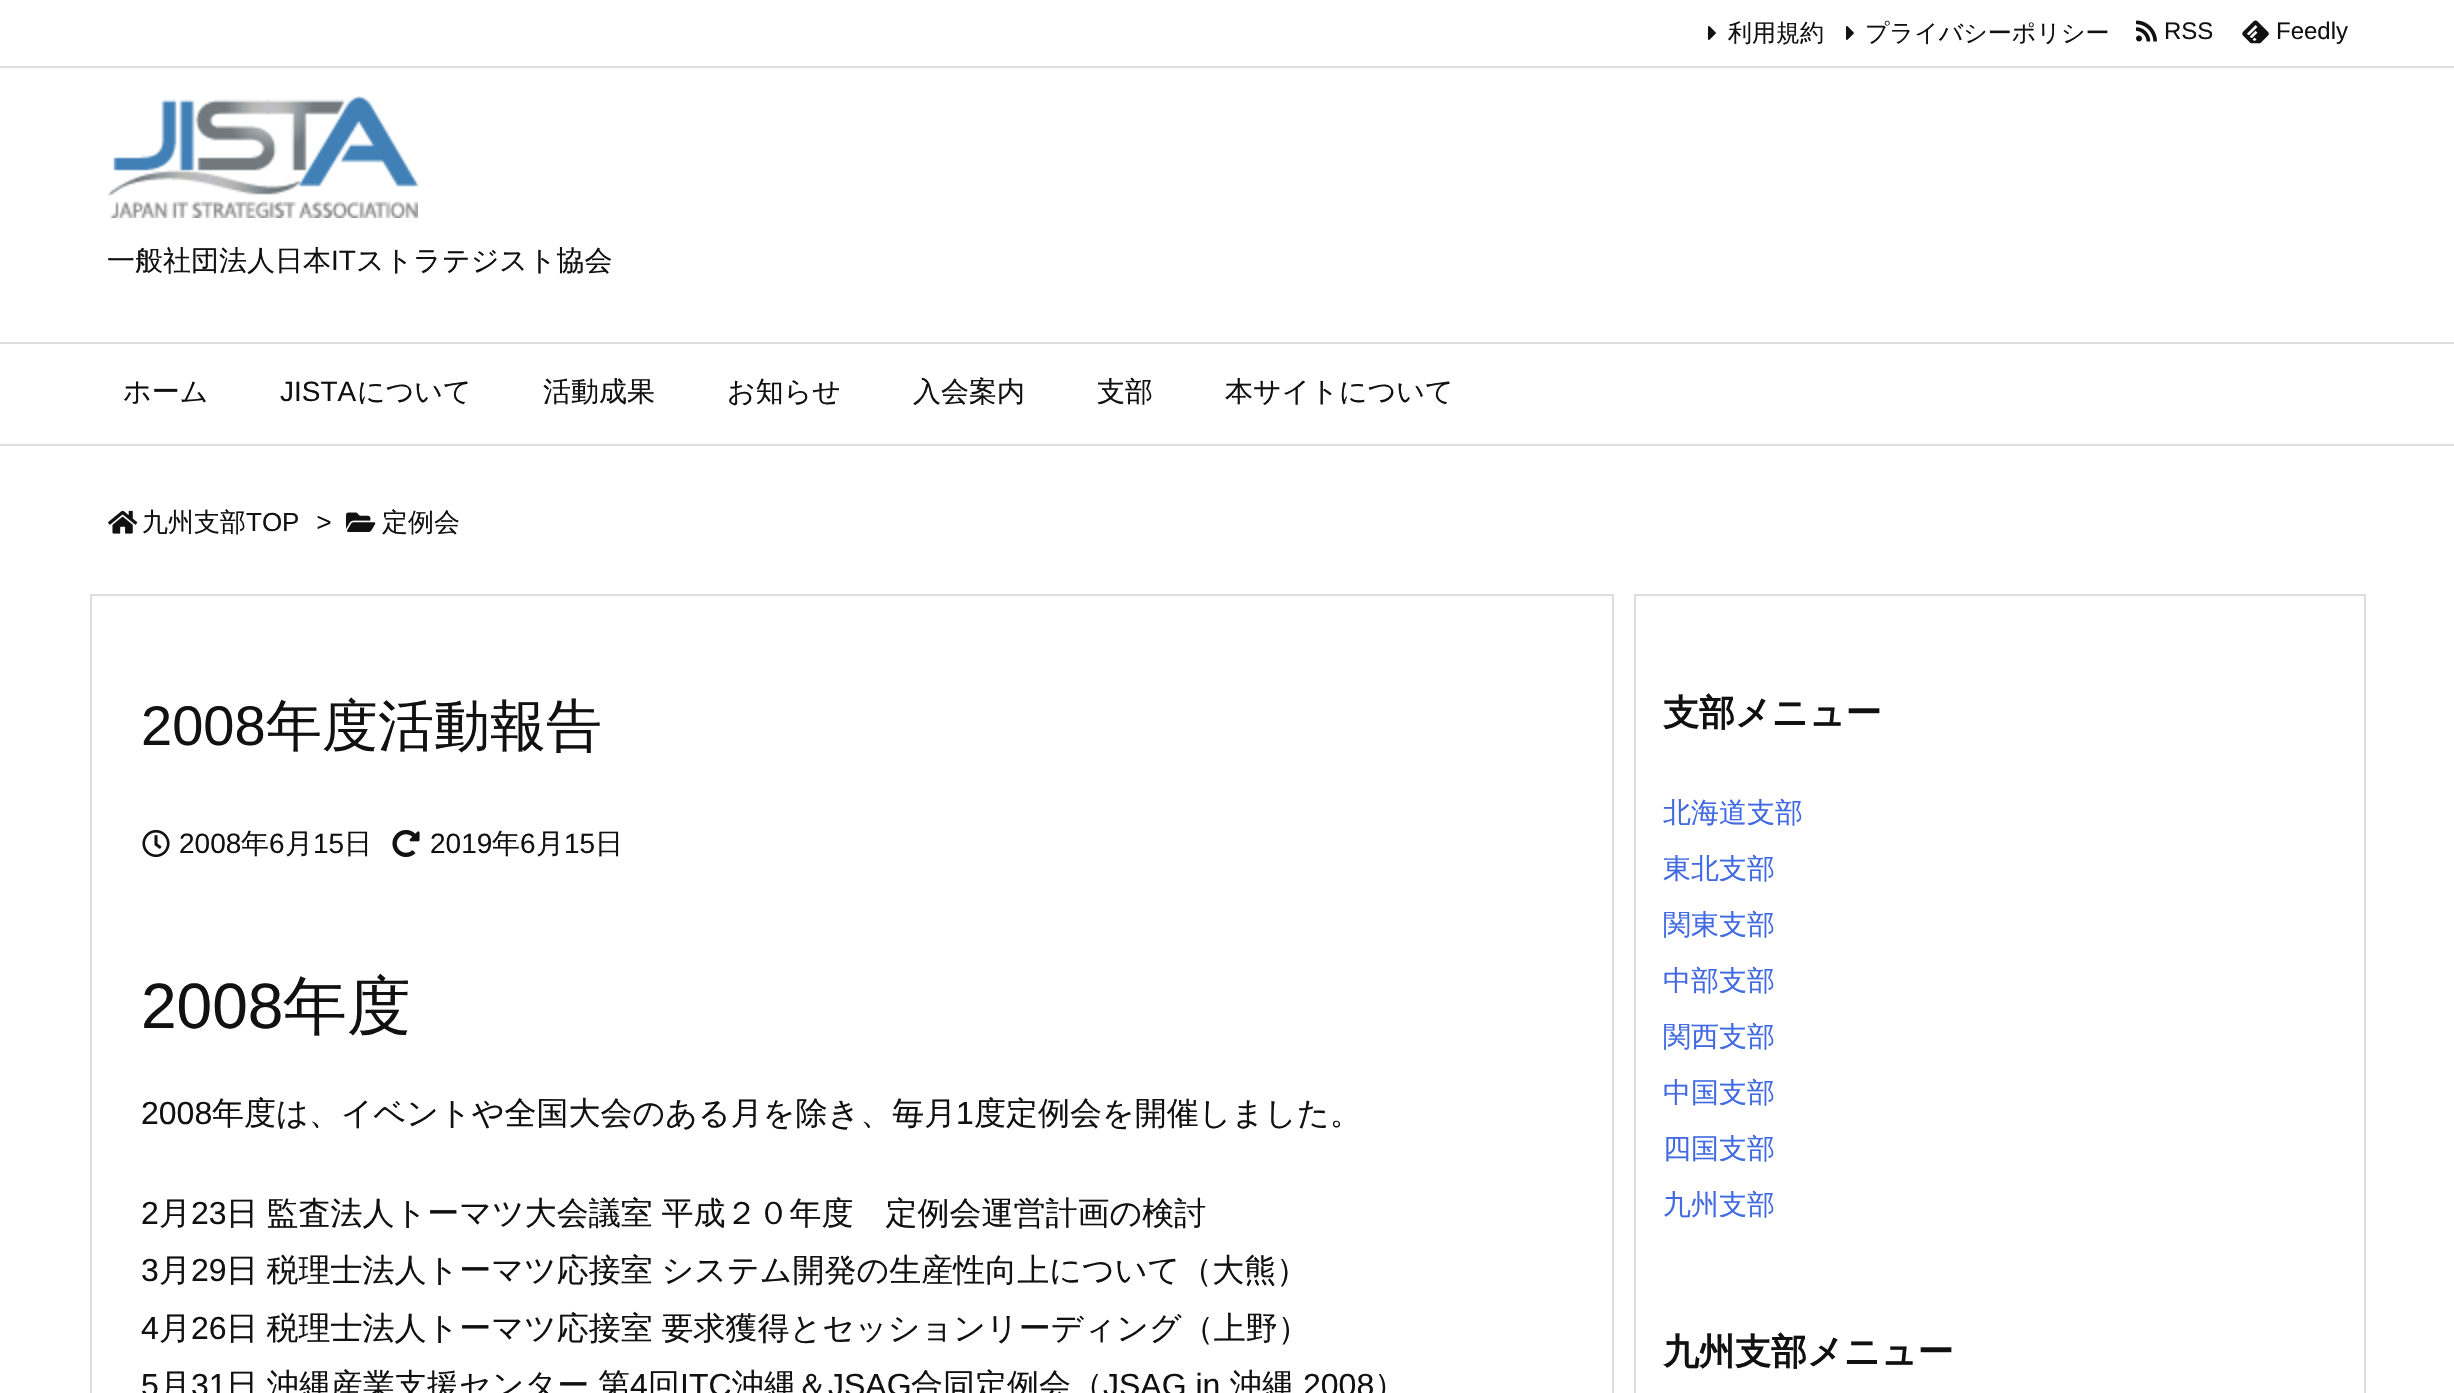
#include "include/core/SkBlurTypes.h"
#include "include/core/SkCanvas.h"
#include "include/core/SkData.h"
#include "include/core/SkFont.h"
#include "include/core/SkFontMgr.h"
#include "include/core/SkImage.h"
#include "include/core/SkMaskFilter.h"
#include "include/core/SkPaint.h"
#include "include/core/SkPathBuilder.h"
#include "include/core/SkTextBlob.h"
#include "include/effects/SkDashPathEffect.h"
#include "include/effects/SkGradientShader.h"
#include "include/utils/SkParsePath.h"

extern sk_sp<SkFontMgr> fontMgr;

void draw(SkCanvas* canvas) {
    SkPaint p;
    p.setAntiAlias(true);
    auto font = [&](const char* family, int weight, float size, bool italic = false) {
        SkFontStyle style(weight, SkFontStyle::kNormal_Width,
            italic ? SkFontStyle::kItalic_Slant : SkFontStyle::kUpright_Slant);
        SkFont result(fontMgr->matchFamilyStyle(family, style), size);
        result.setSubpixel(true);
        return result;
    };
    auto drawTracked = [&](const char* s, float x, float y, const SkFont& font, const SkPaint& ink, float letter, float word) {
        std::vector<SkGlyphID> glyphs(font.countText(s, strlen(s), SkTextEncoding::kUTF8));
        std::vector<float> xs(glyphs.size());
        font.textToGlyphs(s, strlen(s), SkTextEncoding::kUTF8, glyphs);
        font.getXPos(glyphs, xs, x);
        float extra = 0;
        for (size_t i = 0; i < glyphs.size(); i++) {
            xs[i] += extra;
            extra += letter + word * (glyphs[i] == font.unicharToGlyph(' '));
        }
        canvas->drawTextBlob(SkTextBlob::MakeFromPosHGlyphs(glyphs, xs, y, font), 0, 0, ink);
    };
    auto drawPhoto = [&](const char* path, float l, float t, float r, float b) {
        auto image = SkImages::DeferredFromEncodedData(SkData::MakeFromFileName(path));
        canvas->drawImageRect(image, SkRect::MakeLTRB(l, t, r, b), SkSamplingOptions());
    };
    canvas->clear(0xFFFFFFFF);
    p.setColor(0xFFDDDDDD);
    canvas->drawRect(SkRect::MakeLTRB(0, 66, 2454, 68), p);
    drawPhoto("media/1.png", 1708, 26, 1716, 40);
    auto font1 = font("WenQuanYi Zen Hei", 500, 24);
    p.setColor(0xFF111111);
    canvas->drawString("利用規約", 1728, 41, font1, p);
    drawPhoto("media/1.png", 1846, 26, 1854, 40);
    canvas->drawString("プライバシーポリシー", 1865, 41, font1, p);
    drawPhoto("media/2.png", 2136, 20, 2157, 42);
    auto font2 = font("Liberation Sans", 400, 24);
    canvas->drawString("RSS", 2164, 39, font2, p);
    drawPhoto("media/3.png", 2242, 20, 2269, 44);
    canvas->drawString("Feedly", 2276, 39, font2, p);
    p.setColor(0xFFDDDDDD);
    canvas->drawRect(SkRect::MakeLTRB(0, 342, 2454, 344), p);
    canvas->drawRect(SkRect::MakeLTRB(0, 444, 2454, 446), p);
    auto font3 = font("WenQuanYi Zen Hei", 500, 28);
    p.setColor(0xFF111111);
    canvas->drawString("ホーム", 123, 401, font3, p);
    auto font4 = font("Liberation Sans", 400, 28);
    canvas->drawString("JISTA", 280, 401, font4, p);
    {
        const struct { const char* s; float x, y; } items[] = {
            {"について", 357, 401},
            {"活動成果", 543, 401},
            {"お知らせ", 727, 401},
            {"入会案内", 913, 401},
            {"支部", 1097, 401},
            {"本サイトについて", 1225, 401},
        };
        for (auto [s, x, y] : items) {
            canvas->drawString(s, x, y, font3, p);
        }
    }
    drawPhoto("media/4.png", 108, 96, 418, 218);
    canvas->drawString("一般社団法人日本", 107, 270, font3, p);
    canvas->drawString("IT", 331, 270, font4, p);
    canvas->drawString("ストラテジスト協会", 356, 270, font3, p);
    drawPhoto("media/5.png", 108, 510, 138, 534);
    auto font5 = font("WenQuanYi Zen Hei", 500, 26);
    canvas->drawString("九州支部", 142, 531, font5, p);
    auto font6 = font("Liberation Sans", 400, 26);
    canvas->drawString("TOP", 246, 531, font6, p);
    auto font7 = font("Liberation Sans", 400, 26, true);
    canvas->drawString(">", 316, 531, font7, p);
    drawPhoto("media/6.png", 346, 512, 376, 532);
    canvas->drawString("定例会", 382, 531, font5, p);
    p.setStyle(SkPaint::kStroke_Style);
    p.setStrokeWidth(2);
    p.setColor(0xFFDDDDDD);
    canvas->drawRect(SkRect::MakeLTRB(91, 595, 1613, 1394), p);
    auto font8 = font("Liberation Sans", 400, 56);
    p.setStyle(SkPaint::kFill_Style);
    p.setColor(0xFF111111);
    canvas->drawString("2008", 141, 745, font8, p);
    auto font9 = font("WenQuanYi Zen Hei", 500, 56);
    canvas->drawString("年度活動報告", 266, 745, font9, p);
    drawPhoto("media/7.png", 142, 829, 170, 858);
    canvas->drawString("2008", 179, 853, font4, p);
    canvas->drawString("年", 241, 853, font3, p);
    canvas->drawString("6", 269, 853, font4, p);
    canvas->drawString("月", 285, 853, font3, p);
    canvas->drawString("15", 313, 853, font4, p);
    canvas->drawString("日", 344, 853, font3, p);
    drawPhoto("media/8.png", 392, 829, 420, 858);
    canvas->drawString("2019", 430, 853, font4, p);
    canvas->drawString("年", 492, 853, font3, p);
    canvas->drawString("6", 520, 853, font4, p);
    canvas->drawString("月", 536, 853, font3, p);
    canvas->drawString("15", 564, 853, font4, p);
    canvas->drawString("日", 595, 853, font3, p);
    auto font10 = font("Liberation Sans", 400, 64);
    canvas->drawString("2008", 141, 1028, font10, p);
    auto font11 = font("WenQuanYi Zen Hei", 500, 64);
    canvas->drawString("年度", 283, 1028, font11, p);
    auto font12 = font("Liberation Sans", 400, 32);
    canvas->drawString("2008", 141, 1124, font12, p);
    auto font13 = font("WenQuanYi Zen Hei", 500, 32);
    canvas->drawString("年度は、イベントや全国大会のある月を除き、毎月", 212, 1124, font13, p);
    canvas->drawString("1", 956, 1124, font12, p);
    canvas->drawString("度定例会を開催しました。", 974, 1124, font13, p);
    canvas->drawString("2", 141, 1224, font12, p);
    canvas->drawString("月", 159, 1224, font13, p);
    canvas->drawString("23", 191, 1224, font12, p);
    drawTracked("日 監査法人トーマツ大会議室 平成２０年度　定例会運営計画の検討", 226, 1224, font13, p, 0, -1);
    canvas->drawString("3", 141, 1281, font12, p);
    canvas->drawString("月", 159, 1281, font13, p);
    canvas->drawString("29", 191, 1281, font12, p);
    drawTracked("日 税理士法人トーマツ応接室 システム開発の生産性向上について（大熊）", 226, 1281, font13, p, 0, -1);
    canvas->drawString("4", 141, 1339, font12, p);
    canvas->drawString("月", 159, 1339, font13, p);
    canvas->drawString("26", 191, 1339, font12, p);
    drawTracked("日 税理士法人トーマツ応接室 要求獲得とセッションリーディング（上野）", 226, 1339, font13, p, 0, -1);
    canvas->drawString("5", 141, 1396, font12, p);
    canvas->drawString("月", 159, 1396, font13, p);
    canvas->drawString("31", 191, 1396, font12, p);
    {
        const struct { const char* s; float x, y; } items[] = {
            {"日", 226, 1396},
            {"沖縄産業支援センター", 267, 1396},
            {"第", 598, 1396},
        };
        for (auto [s, x, y] : items) {
            canvas->drawString(s, x, y, font13, p);
        }
    }
    canvas->drawString("4", 630, 1396, font12, p);
    canvas->drawString("回", 648, 1396, font13, p);
    canvas->drawString("ITC", 680, 1396, font12, p);
    canvas->drawString("沖縄＆", 732, 1396, font13, p);
    canvas->drawString("JSAG", 828, 1396, font12, p);
    canvas->drawString("合同定例会（", 911, 1396, font13, p);
    canvas->drawString("JSAG in", 1103, 1396, font12, p);
    canvas->drawString("沖縄", 1230, 1396, font13, p);
    canvas->drawString("2008", 1303, 1396, font12, p);
    canvas->drawString("）", 1374, 1396, font13, p);
    p.setStyle(SkPaint::kStroke_Style);
    p.setColor(0xFFDDDDDD);
    canvas->drawRect(SkRect::MakeLTRB(1635, 595, 2365, 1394), p);
    auto font14 = font("WenQuanYi Zen Hei", 700, 36);
    p.setStyle(SkPaint::kFill_Style);
    p.setColor(0xFF111111);
    canvas->drawString("支部メニュー", 1663, 725, font14, p);
    p.setColor(0xFF4169E1);
    {
        const struct { const char* s; float x, y; } items[] = {
            {"北海道支部", 1663, 822},
            {"東北支部", 1663, 878},
            {"関東支部", 1663, 934},
            {"中部支部", 1663, 990},
            {"関西支部", 1663, 1046},
            {"中国支部", 1663, 1102},
            {"四国支部", 1663, 1158},
            {"九州支部", 1663, 1214},
        };
        for (auto [s, x, y] : items) {
            canvas->drawString(s, x, y, font3, p);
        }
    }
    p.setColor(0xFF111111);
    canvas->drawString("九州支部メニュー", 1663, 1364, font14, p);
}
